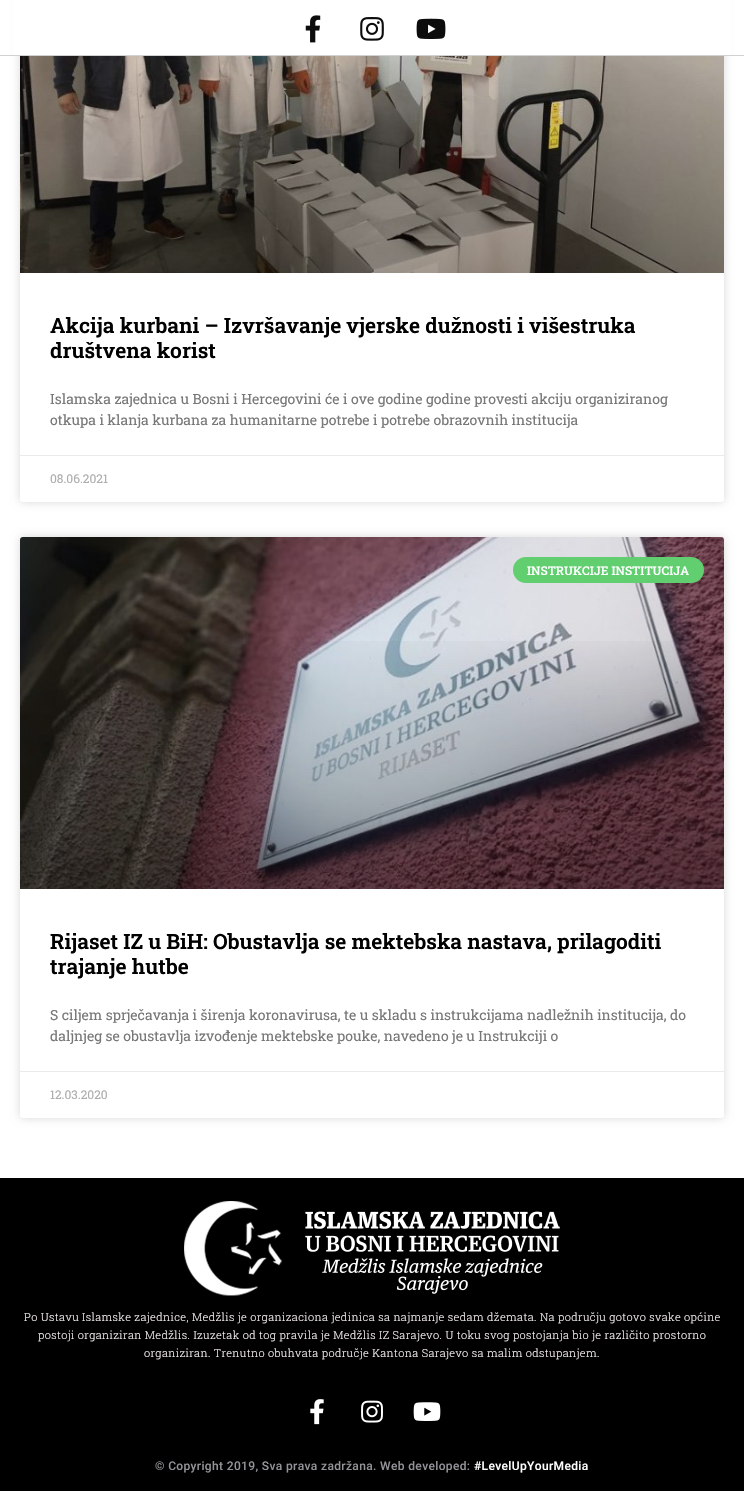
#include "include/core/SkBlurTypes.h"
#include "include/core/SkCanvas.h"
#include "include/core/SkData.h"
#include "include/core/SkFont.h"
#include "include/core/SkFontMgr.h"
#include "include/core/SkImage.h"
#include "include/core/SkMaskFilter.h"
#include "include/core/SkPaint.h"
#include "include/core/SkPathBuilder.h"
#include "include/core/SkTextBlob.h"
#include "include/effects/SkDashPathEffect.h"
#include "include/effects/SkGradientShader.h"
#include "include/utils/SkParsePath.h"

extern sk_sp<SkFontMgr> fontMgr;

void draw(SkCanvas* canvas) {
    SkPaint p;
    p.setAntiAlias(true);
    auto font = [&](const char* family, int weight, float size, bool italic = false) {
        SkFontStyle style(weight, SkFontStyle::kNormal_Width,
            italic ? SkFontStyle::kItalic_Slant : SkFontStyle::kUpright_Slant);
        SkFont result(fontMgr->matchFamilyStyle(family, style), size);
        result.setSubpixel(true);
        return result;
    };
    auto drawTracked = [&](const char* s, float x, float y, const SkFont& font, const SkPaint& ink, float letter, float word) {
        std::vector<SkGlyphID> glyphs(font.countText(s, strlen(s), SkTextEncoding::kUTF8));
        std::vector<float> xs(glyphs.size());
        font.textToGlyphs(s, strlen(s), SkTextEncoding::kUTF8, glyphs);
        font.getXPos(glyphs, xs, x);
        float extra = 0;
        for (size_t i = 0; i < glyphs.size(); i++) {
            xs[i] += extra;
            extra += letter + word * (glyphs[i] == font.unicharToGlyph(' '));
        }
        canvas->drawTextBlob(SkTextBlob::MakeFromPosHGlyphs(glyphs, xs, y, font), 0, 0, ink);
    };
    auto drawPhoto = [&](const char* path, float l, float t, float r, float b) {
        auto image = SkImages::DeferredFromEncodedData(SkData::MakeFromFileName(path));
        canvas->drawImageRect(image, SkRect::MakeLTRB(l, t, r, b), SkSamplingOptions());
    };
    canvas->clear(0xFFFFFFFF);
    p.setColor(0x26000000);
    p.setMaskFilter(SkMaskFilter::MakeBlur(kNormal_SkBlurStyle, 5));
    canvas->drawRoundRect(SkRect::MakeLTRB(20, -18, 724, 502), 3, 3, p);
    p.setMaskFilter(nullptr);
    p.setColor(0xFFFFFFFF);
    canvas->drawRoundRect(SkRect::MakeLTRB(20, -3, 724, 502), 3, 3, p);
    canvas->drawRect(SkRect::MakeLTRB(13, 0, 731, 55), p);
    p.setColor(0xFFD1D1D1);
    canvas->drawRect(SkRect::MakeLTRB(0, 55, 744, 56), p);
    drawPhoto("media/1.png", 305, 15, 321, 43);
    drawPhoto("media/2.png", 360, 17, 384, 41);
    drawPhoto("media/3.png", 416, 18, 446, 39);
    drawPhoto("media/4.png", 20, 56, 724, 273);
    auto font1 = font("Roboto Slab", 600, 21);
    p.setColor(0xFF000000);
    canvas->drawString("Akcija kurbani – Izvršavanje vjerske dužnosti i višestruka", 50, 333, font1, p);
    canvas->drawString("društvena korist", 50, 358, font1, p);
    auto font2 = font("Roboto Slab", 400, 14);
    p.setColor(0xFF777777);
    canvas->drawString("Islamska zajednica u Bosni i Hercegovini će i ove godine godine provesti akciju organiziranog", 50, 404, font2, p);
    canvas->drawString("otkupa i klanja kurbana za humanitarne potrebe i potrebe obrazovnih institucija", 50, 425, font2, p);
    p.setColor(0xFFEAEAEA);
    canvas->drawRect(SkRect::MakeLTRB(20, 455, 724, 456), p);
    auto font3 = font("Roboto Slab", 400, 12);
    p.setColor(0xFFADADAD);
    canvas->drawString("08.06.2021", 50, 483, font3, p);
    p.setColor(0x26000000);
    p.setMaskFilter(SkMaskFilter::MakeBlur(kNormal_SkBlurStyle, 5));
    canvas->drawRoundRect(SkRect::MakeLTRB(20, 537, 724, 1118), 3, 3, p);
    p.setMaskFilter(nullptr);
    p.setColor(0xFFFFFFFF);
    canvas->drawRoundRect(SkRect::MakeLTRB(20, 537, 724, 1118), 3, 3, p);
    drawPhoto("media/5.png", 20, 537, 724, 889);
    {
        const SkColor colors[] = {0x59000000, 0x00000000};
        const float stops[] = {0, 0.75f};
        const SkPoint ends[] = {{372, 889}, {372, 537}};
        p.setShader(SkGradientShader::MakeLinear(ends, colors, stops, 2, SkTileMode::kClamp));
        p.setAlpha(255);
    }
    canvas->drawRect(SkRect::MakeLTRB(20, 641, 724, 889), p);
    p.setShader(nullptr);
    p.setColor(0xFF61CE70);
    canvas->drawRoundRect(SkRect::MakeLTRB(513, 557, 704, 583), 13, 13, p);
    auto font4 = font("Roboto Slab", 500, 12);
    p.setColor(0xFFFFFFFF);
    canvas->drawString("INSTRUKCIJE INSTITUCIJA", 527, 575, font4, p);
    p.setColor(0xFF000000);
    canvas->drawString("Rijaset IZ u BiH: Obustavlja se mektebska nastava, prilagoditi", 50, 949, font1, p);
    canvas->drawString("trajanje hutbe", 50, 974, font1, p);
    p.setColor(0xFF777777);
    canvas->drawString("S ciljem sprječavanja i širenja koronavirusa, te u skladu s instrukcijama nadležnih institucija, do", 50, 1020, font2, p);
    canvas->drawString("daljnjeg se obustavlja izvođenje mektebske pouke, navedeno je u Instrukciji o", 50, 1041, font2, p);
    p.setColor(0xFFEAEAEA);
    canvas->drawRect(SkRect::MakeLTRB(20, 1071, 724, 1072), p);
    p.setColor(0xFFADADAD);
    canvas->drawString("12.03.2020", 50, 1099, font3, p);
    p.setColor(0xFF000000);
    canvas->drawRect(SkRect::MakeLTRB(0, 1178, 744, 1491), p);
    drawPhoto("media/6.png", 184, 1201, 560, 1296);
    auto font5 = font("Roboto Slab", 300, 11);
    p.setColor(0xFFFFF7F9);
    {
        const struct { const char* s; float x, y; } items[] = {
            {"Po Ustavu Islamske zajednice, Medžlis je organizaciona jedinica sa najmanje sedam džemata. Na području gotovo svake općine", 24, 1321},
            {"postoji organiziran Medžlis. Izuzetak od tog pravila je Medžlis IZ Sarajevo. U toku svog postojanja bio je različito prostorno", 38, 1339},
            {"organiziran. Trenutno obuhvata područje Kantona Sarajevo sa malim odstupanjem.", 144, 1357},
        };
        for (auto [s, x, y] : items) {
            drawTracked(s, x, y, font5, p, 0.36f, 0);
        }
    }
    drawPhoto("media/7.png", 310, 1399, 324, 1425);
    drawPhoto("media/8.png", 361, 1400, 383, 1423);
    drawPhoto("media/9.png", 413, 1402, 441, 1421);
    auto font6 = font("Roboto", 500, 12);
    p.setColor(0xFF939398);
    drawTracked("© Copyright 2019, Sva prava zadržana. Web developed:", 155, 1470, font6, p, 0.36f, 0);
    p.setColor(0xFFFFFFFF);
    drawTracked("#LevelUpYourMedia", 474, 1470, font6, p, 0.36f, 0);
}
